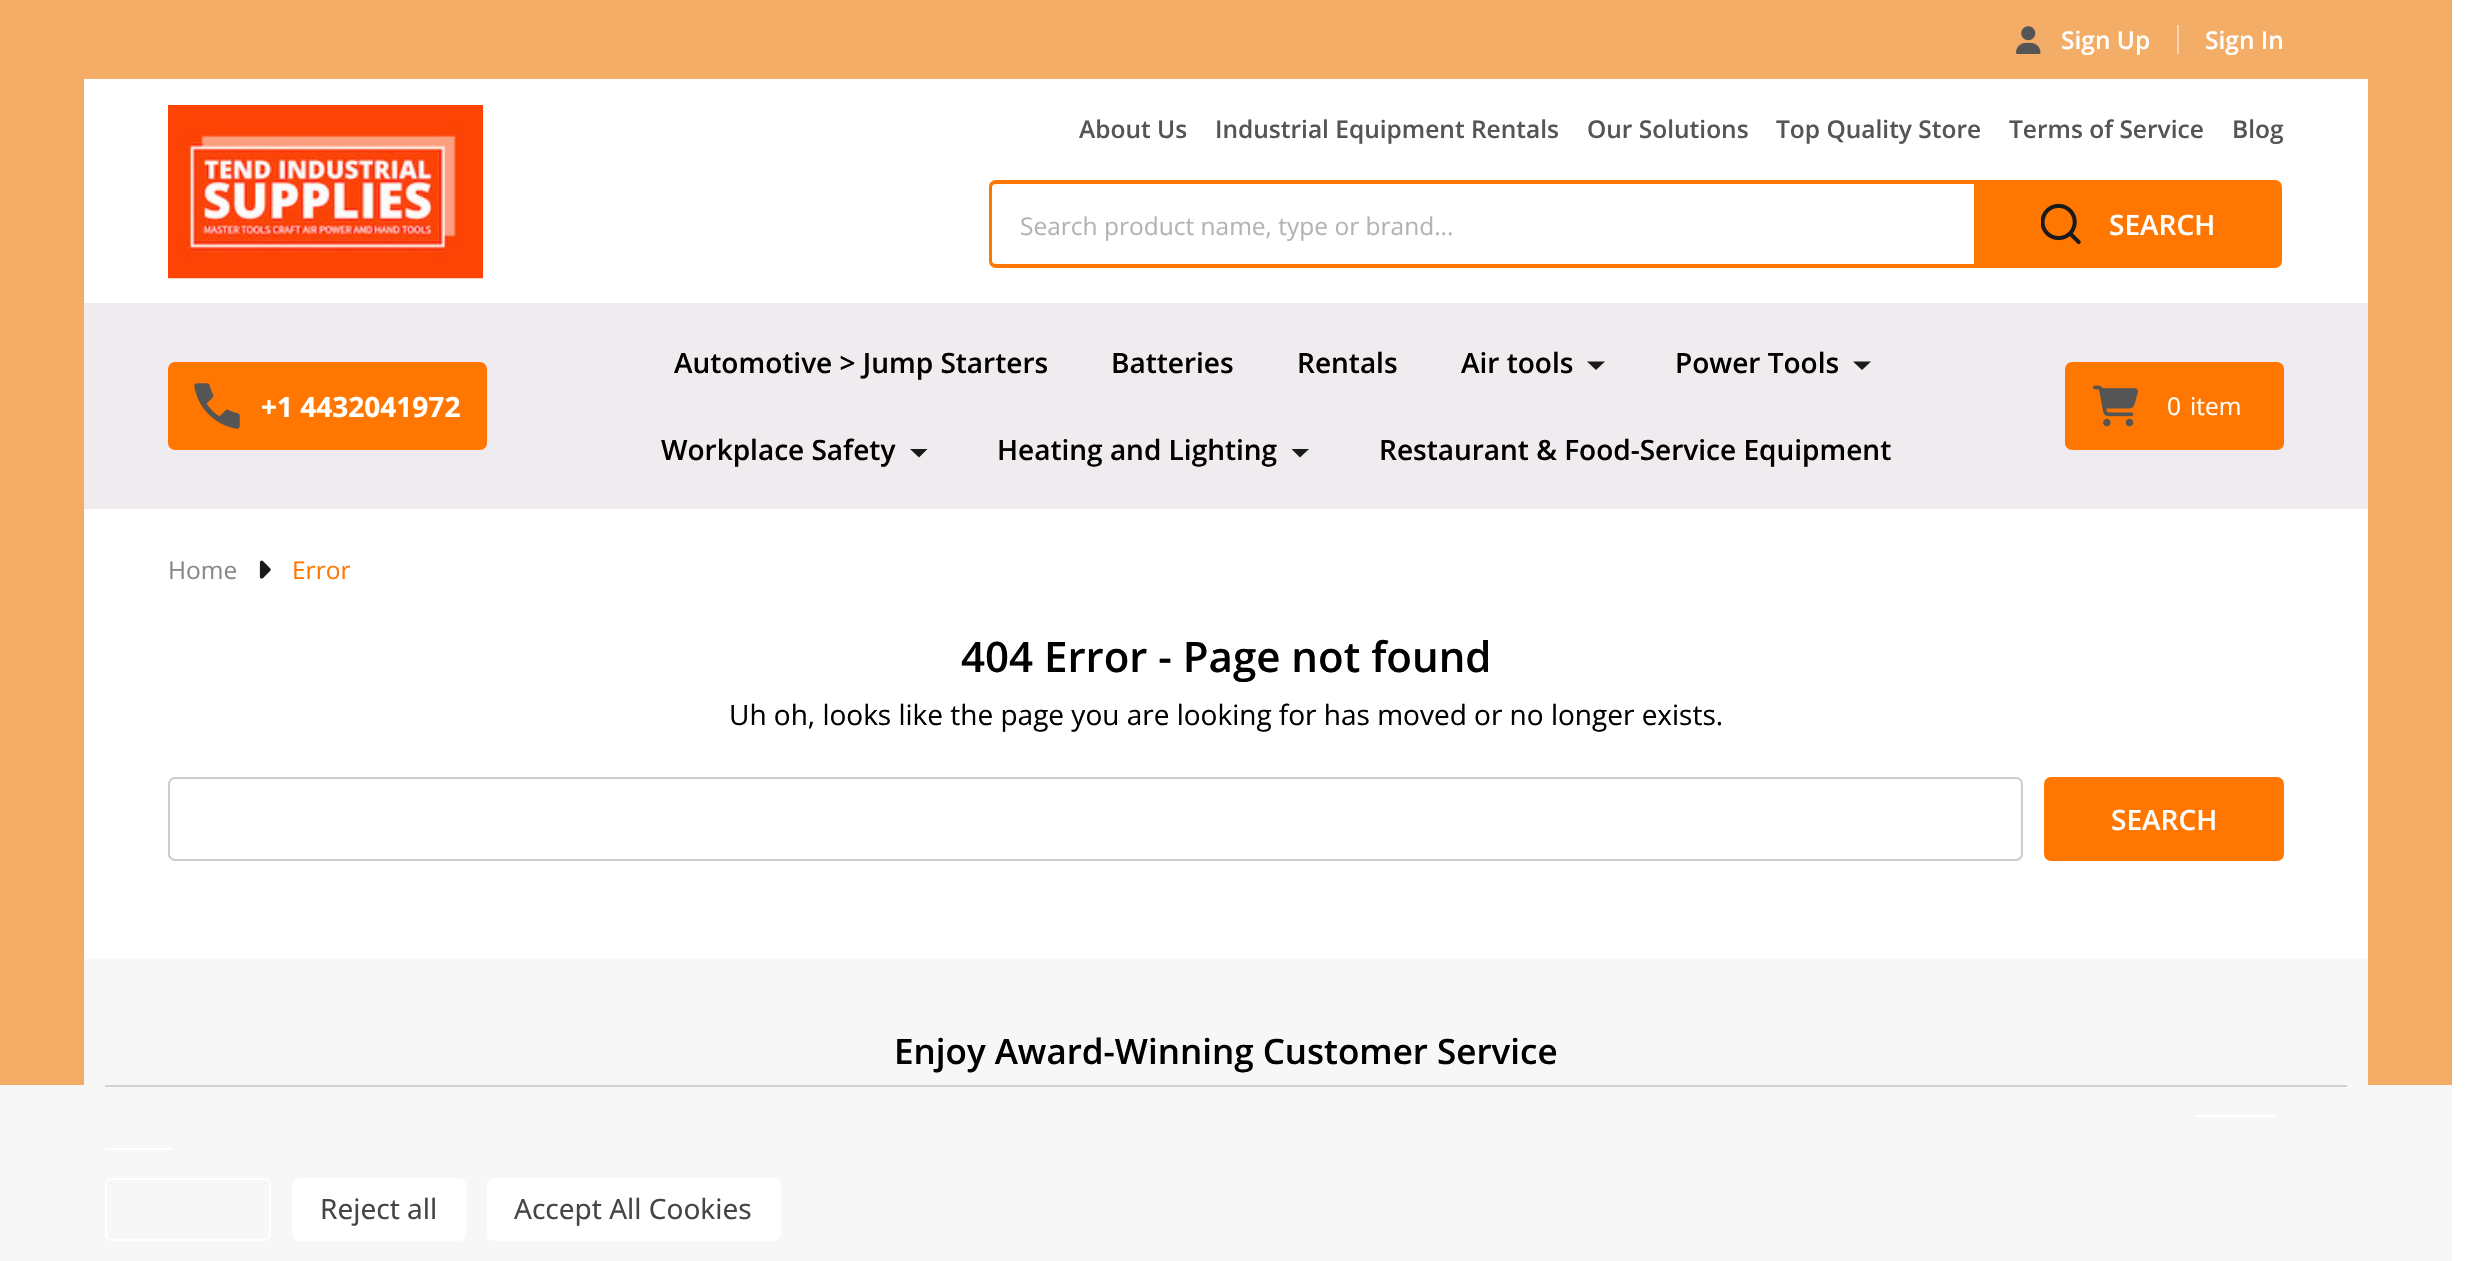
#include "include/core/SkBlurTypes.h"
#include "include/core/SkCanvas.h"
#include "include/core/SkData.h"
#include "include/core/SkFont.h"
#include "include/core/SkFontMgr.h"
#include "include/core/SkImage.h"
#include "include/core/SkMaskFilter.h"
#include "include/core/SkPaint.h"
#include "include/core/SkPathBuilder.h"
#include "include/core/SkTextBlob.h"
#include "include/effects/SkDashPathEffect.h"
#include "include/effects/SkGradientShader.h"
#include "include/utils/SkParsePath.h"

extern sk_sp<SkFontMgr> fontMgr;

void draw(SkCanvas* canvas) {
    SkPaint p;
    p.setAntiAlias(true);
    auto font = [&](const char* family, int weight, float size, bool italic = false) {
        SkFontStyle style(weight, SkFontStyle::kNormal_Width,
            italic ? SkFontStyle::kItalic_Slant : SkFontStyle::kUpright_Slant);
        SkFont result(fontMgr->matchFamilyStyle(family, style), size);
        result.setSubpixel(true);
        return result;
    };
    auto drawTracked = [&](const char* s, float x, float y, const SkFont& font, const SkPaint& ink, float letter, float word) {
        std::vector<SkGlyphID> glyphs(font.countText(s, strlen(s), SkTextEncoding::kUTF8));
        std::vector<float> xs(glyphs.size());
        font.textToGlyphs(s, strlen(s), SkTextEncoding::kUTF8, glyphs);
        font.getXPos(glyphs, xs, x);
        float extra = 0;
        for (size_t i = 0; i < glyphs.size(); i++) {
            xs[i] += extra;
            extra += letter + word * (glyphs[i] == font.unicharToGlyph(' '));
        }
        canvas->drawTextBlob(SkTextBlob::MakeFromPosHGlyphs(glyphs, xs, y, font), 0, 0, ink);
    };
    auto drawPhoto = [&](const char* path, float l, float t, float r, float b) {
        auto image = SkImages::DeferredFromEncodedData(SkData::MakeFromFileName(path));
        canvas->drawImageRect(image, SkRect::MakeLTRB(l, t, r, b), SkSamplingOptions());
    };
    canvas->clear(0xFFFFFFFF);
    {
        const struct { float l, t, r, b; SkColor color; } items[] = {
            {2368, 0, 2452, 1085, 0xFFF3AD66},
            {0, 0, 84, 1085, 0xFFF3AD66},
            {84, 0, 2368, 79, 0xFFF3AD66},
        };
        for (auto [l, t, r, b, color] : items) {
            p.setColor(color);
            canvas->drawRect(SkRect::MakeLTRB(l, t, r, b), p);
        }
    }
    drawPhoto("media/1.png", 2016, 26, 2041, 54);
    auto font1 = font("Open Sans", 600, 24.5f);
    p.setColor(0xFFFFFFFF);
    canvas->drawString("Sign Up", 2061, 49, font1, p);
    p.setColor(0xFFF9D6B3);
    canvas->drawRect(SkRect::MakeLTRB(2177, 25, 2179, 54), p);
    p.setColor(0xFFFFFFFF);
    canvas->drawString("Sign In", 2205, 49, font1, p);
    drawPhoto("media/2.png", 168, 105, 483, 279);
    p.setColor(0xFF555555);
    {
        const struct { const char* s; float x, y; } items[] = {
            {"About Us", 1079, 138},
            {"Industrial Equipment Rentals", 1215, 138},
            {"Our Solutions", 1587, 138},
            {"Top Quality Store", 1776, 138},
            {"Terms of Service", 2009, 138},
            {"Blog", 2232, 138},
        };
        for (auto [s, x, y] : items) {
            canvas->drawString(s, x, y, font1, p);
        }
    }
    p.setColor(0xFFFF7700);
    canvas->drawPath(SkPathBuilder(SkPathFillType::kEvenOdd).moveTo(996, 180).lineTo(1974, 180).lineTo(1974, 268).lineTo(996, 268).cubicTo(992, 268, 989, 265, 989, 261).lineTo(989, 187).cubicTo(989, 183, 992, 180, 996, 180).close().moveTo(996, 184).lineTo(1974, 184).lineTo(1974, 264).lineTo(996, 264).cubicTo(994, 264, 992, 263, 992, 261).lineTo(992, 187).cubicTo(992, 185, 994, 184, 996, 184).close().detach(), p);
    auto font2 = font("Open Sans", 400, 24.5f);
    p.setColor(0xFFB3B3B3);
    canvas->drawString("Search product name, type or brand...", 1020, 235, font2, p);
    p.setColor(0xFFFF7700);
    canvas->drawPath(SkPathBuilder().moveTo(1976, 182).lineTo(2275, 182).cubicTo(2278, 182, 2280, 184, 2280, 187).lineTo(2280, 261).cubicTo(2280, 264, 2278, 266, 2275, 266).lineTo(1976, 266).close().detach(), p);
    p.setStyle(SkPaint::kStroke_Style);
    p.setStrokeWidth(4);
    canvas->drawPath(SkPathBuilder().moveTo(1976, 182).lineTo(2275, 182).cubicTo(2278, 182, 2280, 184, 2280, 187).lineTo(2280, 261).cubicTo(2280, 264, 2278, 266, 2275, 266).lineTo(1976, 266).close().detach(), p);
    drawPhoto("media/3.png", 2041, 203, 2081, 245);
    auto font3 = font("Open Sans", 600, 28);
    p.setStyle(SkPaint::kFill_Style);
    p.setColor(0xFFFFFFFF);
    canvas->drawString("SEARCH", 2109, 235, font3, p);
    p.setColor(0xFFEFEBEF);
    canvas->drawRect(SkRect::MakeLTRB(84, 303, 2368, 509), p);
    p.setColor(0xFFFF7700);
    canvas->drawRoundRect(SkRect::MakeLTRB(168, 362, 487, 450), 7, 7, p);
    drawPhoto("media/4.png", 194, 383, 240, 429);
    auto font4 = font("Open Sans", 700, 28);
    p.setColor(0xFFFFFFFF);
    canvas->drawString("+1 4432041972", 261, 417, font4, p);
    p.setColor(0xFF000000);
    {
        const struct { const char* s; float x, y; } items[] = {
            {"Automotive > Jump Starters", 674, 373},
            {"Batteries", 1111, 373},
            {"Rentals", 1297, 373},
            {"Air tools", 1461, 373},
        };
        for (auto [s, x, y] : items) {
            canvas->drawString(s, x, y, font3, p);
        }
    }
    p.setColor(0xFF1A1A1A);
    canvas->drawPath(SkPathBuilder().moveTo(1587, 361.5f).lineTo(1596, 370).lineTo(1605, 361.5f).close().detach(), p);
    p.setColor(0xFF000000);
    canvas->drawString("Power Tools", 1675, 373, font3, p);
    p.setColor(0xFF1A1A1A);
    canvas->drawPath(SkPathBuilder().moveTo(1853, 361.5f).lineTo(1862, 370).lineTo(1871, 361.5f).close().detach(), p);
    p.setColor(0xFF000000);
    canvas->drawString("Workplace Safety", 661, 460, font3, p);
    p.setColor(0xFF1A1A1A);
    canvas->drawPath(SkPathBuilder().moveTo(910, 449).lineTo(919, 457.5f).lineTo(927.5f, 449).close().detach(), p);
    p.setColor(0xFF000000);
    canvas->drawString("Heating and Lighting", 997, 460, font3, p);
    p.setColor(0xFF1A1A1A);
    canvas->drawPath(SkPathBuilder().moveTo(1291.5f, 449).lineTo(1300, 457.5f).lineTo(1309, 449).close().detach(), p);
    p.setColor(0xFF000000);
    canvas->drawString("Restaurant & Food-Service Equipment", 1379, 460, font3, p);
    p.setColor(0xFFFF7700);
    canvas->drawRoundRect(SkRect::MakeLTRB(2065, 362, 2284, 450), 7, 7, p);
    drawPhoto("media/5.png", 2093, 385, 2138, 427);
    p.setColor(0xFFFFFFFF);
    drawTracked("0", 2167, 415, font2, p, -1, 0);
    canvas->drawString("item", 2190, 415, font2, p);
    p.setColor(0xFF888888);
    canvas->drawString("Home", 168, 579, font2, p);
    drawPhoto("media/6.png", 259, 560, 271, 579);
    p.setColor(0xFFFF7700);
    canvas->drawString("Error", 292, 579, font2, p);
    auto font5 = font("Open Sans", 600, 42);
    p.setColor(0xFF000000);
    canvas->drawString("404 Error - Page not found", 961, 672, font5, p);
    auto font6 = font("Open Sans", 400, 28);
    canvas->drawString("Uh oh, looks like the page you are looking for has moved or no longer exists.", 729, 725, font6, p);
    p.setStyle(SkPaint::kStroke_Style);
    p.setStrokeWidth(2);
    p.setColor(0xFFCCCCCC);
    canvas->drawRoundRect(SkRect::MakeLTRB(169, 778, 2022, 860), 6, 6, p);
    p.setStyle(SkPaint::kFill_Style);
    p.setColor(0xFFFF7700);
    canvas->drawRoundRect(SkRect::MakeLTRB(2046, 779, 2282, 859), 5, 5, p);
    p.setStyle(SkPaint::kStroke_Style);
    p.setStrokeWidth(4);
    canvas->drawRoundRect(SkRect::MakeLTRB(2046, 779, 2282, 859), 5, 5, p);
    p.setStyle(SkPaint::kFill_Style);
    p.setColor(0xFFFFFFFF);
    canvas->drawString("SEARCH", 2111, 830, font3, p);
    p.setColor(0xFFF7F7F7);
    canvas->drawRect(SkRect::MakeLTRB(84, 959, 2368, 1085), p);
    auto font7 = font("Open Sans", 600, 35);
    p.setColor(0xFF000000);
    canvas->drawString("Enjoy Award-Winning Customer Service", 894, 1064, font7, p);
    {
        const struct { float l, t, r, b; SkColor color; } items[] = {
            {0, 1085, 2452, 1261, 0xFFF7F7F7},
            {105, 1085, 2347, 1087, 0xFFD0D1D3},
            {2195, 1115, 2275, 1117, 0xFFFFFFFF},
            {105, 1148, 172, 1150, 0xFFFFFFFF},
        };
        for (auto [l, t, r, b, color] : items) {
            p.setColor(color);
            canvas->drawRect(SkRect::MakeLTRB(l, t, r, b), p);
        }
    }
    p.setStyle(SkPaint::kStroke_Style);
    p.setStrokeWidth(2);
    canvas->drawRoundRect(SkRect::MakeLTRB(106, 1179, 270, 1240), 6, 6, p);
    p.setStyle(SkPaint::kFill_Style);
    canvas->drawRoundRect(SkRect::MakeLTRB(292, 1178, 466, 1241), 7, 7, p);
    auto font8 = font("Noto Sans", 400, 28);
    p.setColor(0xFF454545);
    canvas->drawString("Reject all", 320, 1219, font8, p);
    p.setColor(0xFFFFFFFF);
    canvas->drawRoundRect(SkRect::MakeLTRB(487, 1178, 781, 1241), 7, 7, p);
    p.setColor(0xFF454545);
    canvas->drawString("Accept All Cookies", 514, 1219, font8, p);
}
